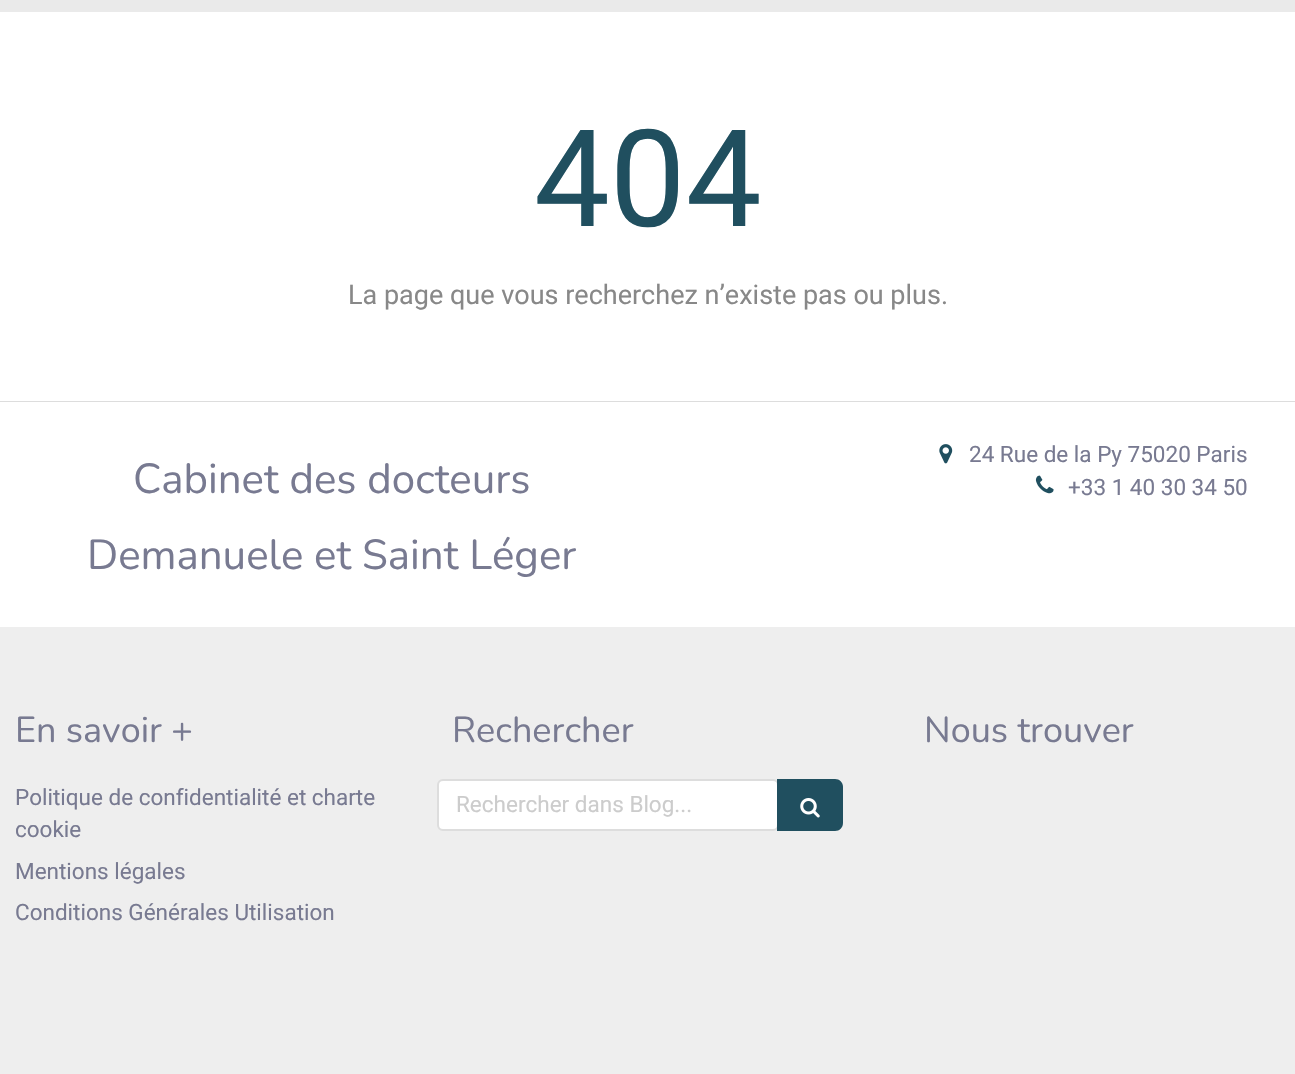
#include "include/core/SkBlurTypes.h"
#include "include/core/SkCanvas.h"
#include "include/core/SkData.h"
#include "include/core/SkFont.h"
#include "include/core/SkFontMgr.h"
#include "include/core/SkImage.h"
#include "include/core/SkMaskFilter.h"
#include "include/core/SkPaint.h"
#include "include/core/SkPathBuilder.h"
#include "include/core/SkTextBlob.h"
#include "include/effects/SkDashPathEffect.h"
#include "include/effects/SkGradientShader.h"
#include "include/utils/SkParsePath.h"

extern sk_sp<SkFontMgr> fontMgr;

void draw(SkCanvas* canvas) {
    SkPaint p;
    p.setAntiAlias(true);
    auto font = [&](const char* family, int weight, float size, bool italic = false) {
        SkFontStyle style(weight, SkFontStyle::kNormal_Width,
            italic ? SkFontStyle::kItalic_Slant : SkFontStyle::kUpright_Slant);
        SkFont result(fontMgr->matchFamilyStyle(family, style), size);
        result.setSubpixel(true);
        return result;
    };
    auto drawPhoto = [&](const char* path, float l, float t, float r, float b) {
        auto image = SkImages::DeferredFromEncodedData(SkData::MakeFromFileName(path));
        canvas->drawImageRect(image, SkRect::MakeLTRB(l, t, r, b), SkSamplingOptions());
    };
    canvas->clear(0xFFFFFFFF);
    p.setColor(0xFFEAEAEA);
    canvas->drawRect(SkRect::MakeLTRB(0, 0, 1295, 12), p);
    auto font1 = font("Roboto", 400, 135);
    p.setColor(0xFF204F5F);
    canvas->drawString("404", 534, 226, font1, p);
    auto font2 = font("Roboto", 400, 27);
    p.setColor(0xFF888888);
    canvas->drawString("La page que vous recherchez n’existe pas ou plus.", 348, 304, font2, p);
    p.setColor(0xFFDDDDDD);
    canvas->drawRect(SkRect::MakeLTRB(0, 401, 1295, 402), p);
    auto font3 = font("Nunito", 400, 42);
    p.setColor(0xFF787A91);
    canvas->drawString("Cabinet des docteurs", 133, 493, font3, p);
    canvas->drawString("Demanuele et Saint Léger", 87, 569, font3, p);
    drawPhoto("media/1.png", 939, 444, 953, 464);
    auto font4 = font("Roboto", 400, 22.5f);
    canvas->drawString("24 Rue de la Py 75020 Paris", 969, 462, font4, p);
    drawPhoto("media/2.png", 1035, 475, 1054, 494);
    canvas->drawString("+33 1 40 30 34 50", 1068, 495, font4, p);
    p.setColor(0xFFEEEEEE);
    canvas->drawRect(SkRect::MakeLTRB(0, 627, 1295, 1074), p);
    auto font5 = font("Nunito", 400, 36);
    p.setColor(0xFF787A91);
    canvas->drawString("En savoir +", 15, 742, font5, p);
    {
        const struct { const char* s; float x, y; } items[] = {
            {"Politique de confidentialité et charte", 15, 805},
            {"cookie", 15, 837},
            {"Mentions légales", 15, 879},
            {"Conditions Générales Utilisation", 15, 920},
        };
        for (auto [s, x, y] : items) {
            canvas->drawString(s, x, y, font4, p);
        }
    }
    canvas->drawString("Rechercher", 452, 742, font5, p);
    p.setColor(0xFFFFFFFF);
    canvas->drawRoundRect(SkRect::MakeLTRB(438, 780, 778, 830), 5, 5, p);
    p.setStyle(SkPaint::kStroke_Style);
    p.setStrokeWidth(2);
    p.setColor(0xFFDDDDDD);
    canvas->drawRoundRect(SkRect::MakeLTRB(438, 780, 778, 830), 5, 5, p);
    p.setStyle(SkPaint::kFill_Style);
    p.setColor(0xFFCCCCCC);
    canvas->drawString("Rechercher dans Blog...", 456, 812, font4, p);
    p.setColor(0xFF204F5F);
    canvas->drawPath(SkPathBuilder().moveTo(777, 779).lineTo(835, 779).cubicTo(839.5f, 779, 843, 782.5f, 843, 787).lineTo(843, 823).cubicTo(843, 827.5f, 839.5f, 831, 835, 831).lineTo(777, 831).close().detach(), p);
    drawPhoto("media/3.png", 800, 798, 820, 818);
    p.setColor(0xFF787A91);
    canvas->drawString("Nous trouver", 924, 742, font5, p);
}
